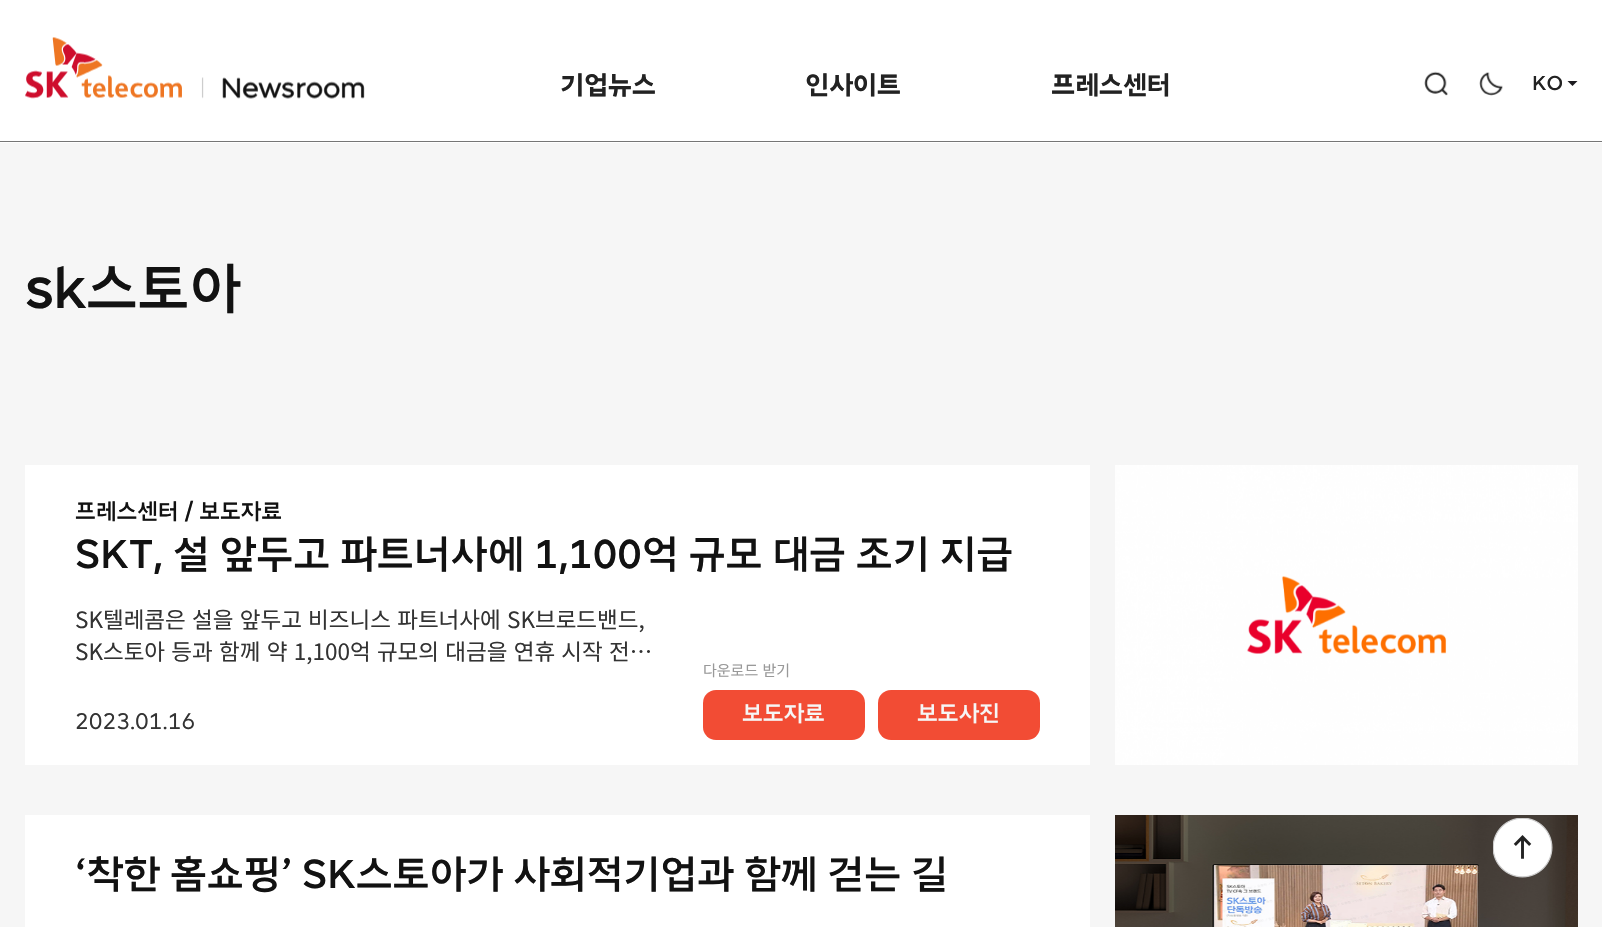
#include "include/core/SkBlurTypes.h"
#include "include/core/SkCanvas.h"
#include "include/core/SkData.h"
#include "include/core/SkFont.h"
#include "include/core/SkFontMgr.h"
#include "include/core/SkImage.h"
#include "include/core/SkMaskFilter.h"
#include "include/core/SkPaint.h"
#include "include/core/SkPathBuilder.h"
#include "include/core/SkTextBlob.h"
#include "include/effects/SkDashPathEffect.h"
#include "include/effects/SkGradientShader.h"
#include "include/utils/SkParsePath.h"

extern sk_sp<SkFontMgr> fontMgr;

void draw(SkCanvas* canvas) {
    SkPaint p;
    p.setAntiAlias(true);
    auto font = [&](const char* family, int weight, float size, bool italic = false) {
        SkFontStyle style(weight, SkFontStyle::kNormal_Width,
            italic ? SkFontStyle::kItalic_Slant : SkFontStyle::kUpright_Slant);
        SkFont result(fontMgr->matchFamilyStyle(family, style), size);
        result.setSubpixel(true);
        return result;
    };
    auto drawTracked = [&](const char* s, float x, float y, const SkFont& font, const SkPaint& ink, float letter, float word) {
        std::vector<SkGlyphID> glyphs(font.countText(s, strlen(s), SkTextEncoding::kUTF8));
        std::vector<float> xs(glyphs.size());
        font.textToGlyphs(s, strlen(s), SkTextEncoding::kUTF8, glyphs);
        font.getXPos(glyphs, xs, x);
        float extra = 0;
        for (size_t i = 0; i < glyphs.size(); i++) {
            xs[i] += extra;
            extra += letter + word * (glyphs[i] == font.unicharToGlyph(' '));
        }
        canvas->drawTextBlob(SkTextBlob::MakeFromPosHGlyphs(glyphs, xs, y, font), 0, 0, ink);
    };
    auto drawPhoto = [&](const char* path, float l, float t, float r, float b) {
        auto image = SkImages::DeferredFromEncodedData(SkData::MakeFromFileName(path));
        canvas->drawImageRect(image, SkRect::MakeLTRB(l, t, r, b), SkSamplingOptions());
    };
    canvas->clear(0xFFF6F6F6);
    p.setColor(0xFFFFFFFF);
    canvas->drawRect(SkRect::MakeLTRB(0, 0, 1602, 143), p);
    p.setColor(0xFF767676);
    canvas->drawRect(SkRect::MakeLTRB(0, 141, 1602, 142), p);
    drawPhoto("media/1.png", 25, 37, 365, 99);
    auto font1 = font("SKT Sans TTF", 700, 26.25f);
    p.setColor(0xFF222222);
    {
        const struct { const char* s; float x, y; } items[] = {
            {"기업뉴스", 560, 94},
            {"인사이트", 805, 94},
            {"프레스센터", 1051, 94},
        };
        for (auto [s, x, y] : items) {
            drawTracked(s, x, y, font1, p, -0.25f, 0);
        }
    }
    drawPhoto("media/2.png", 1424, 71, 1448, 96);
    drawPhoto("media/3.png", 1479, 72, 1503, 96);
    auto font2 = font("SKT Sans TTF", 500, 20);
    canvas->drawString("KO", 1532, 90, font2, p);
    p.setColor(0xFF1C1B1F);
    canvas->drawPath(SkPathBuilder().moveTo(1572.5f, 86).lineTo(1567.5f, 81).lineTo(1577.5f, 81).close().detach(), p);
    auto font3 = font("SKT Sans TTF", 500, 56);
    p.setColor(0xFF121212);
    canvas->drawString("sk스토아", 25, 308, font3, p);
    p.setColor(0xFFFFFFFF);
    canvas->drawRect(SkRect::MakeLTRB(25, 465, 1090, 765), p);
    auto font4 = font("SKT Sans TTF", 500, 22.5f);
    p.setColor(0xFF121212);
    canvas->drawString("프레스센터 / 보도자료", 75, 519, font4, p);
    auto font5 = font("SKT Sans TTF", 500, 40);
    canvas->drawString("SKT, 설 앞두고 파트너사에 1,100억 규모 대금 조기 지급", 75, 568, font5, p);
    drawPhoto("media/4.png", 1115, 465, 1578, 765);
    auto font6 = font("Noto Sans KR", 400, 22.5f);
    p.setColor(0xFF333333);
    drawTracked("SK텔레콤은 설을 앞두고 비즈니스 파트너사에 SK브로드밴드,", 75, 628, font6, p, 0, 1.25f);
    drawTracked("SK스토아 등과 함께 약 1,100억 규모의 대금을 연휴 시작 전…", 75, 660, font6, p, 0, 1.25f);
    auto font7 = font("SKT Sans TTF", 400, 22.5f);
    canvas->drawString("2023.01.16", 75, 729, font7, p);
    auto font8 = font("Noto Sans KR", 400, 15);
    p.setColor(0xFF999999);
    drawTracked("다운로드 받기", 703, 676, font8, p, 0, 1);
    p.setColor(0xFFF24C34);
    canvas->drawRoundRect(SkRect::MakeLTRB(703, 690, 865, 740), 13, 13, p);
    p.setColor(0xFFF6F6F6);
    canvas->drawString("보도자료", 742, 721, font4, p);
    p.setColor(0xFFF24C34);
    canvas->drawRoundRect(SkRect::MakeLTRB(878, 690, 1040, 740), 13, 13, p);
    p.setColor(0xFFF6F6F6);
    canvas->drawString("보도사진", 917, 721, font4, p);
    p.setColor(0xFFFFFFFF);
    canvas->drawRect(SkRect::MakeLTRB(25, 815, 1090, 927), p);
    p.setColor(0xFF121212);
    canvas->drawString("‘착한 홈쇼핑’ SK스토아가 사회적기업과 함께 걷는 길", 75, 888, font5, p);
    drawPhoto("media/5.png", 1115, 815, 1578, 927);
    drawPhoto("media/6.png", 1493, 818, 1553, 878);
}
